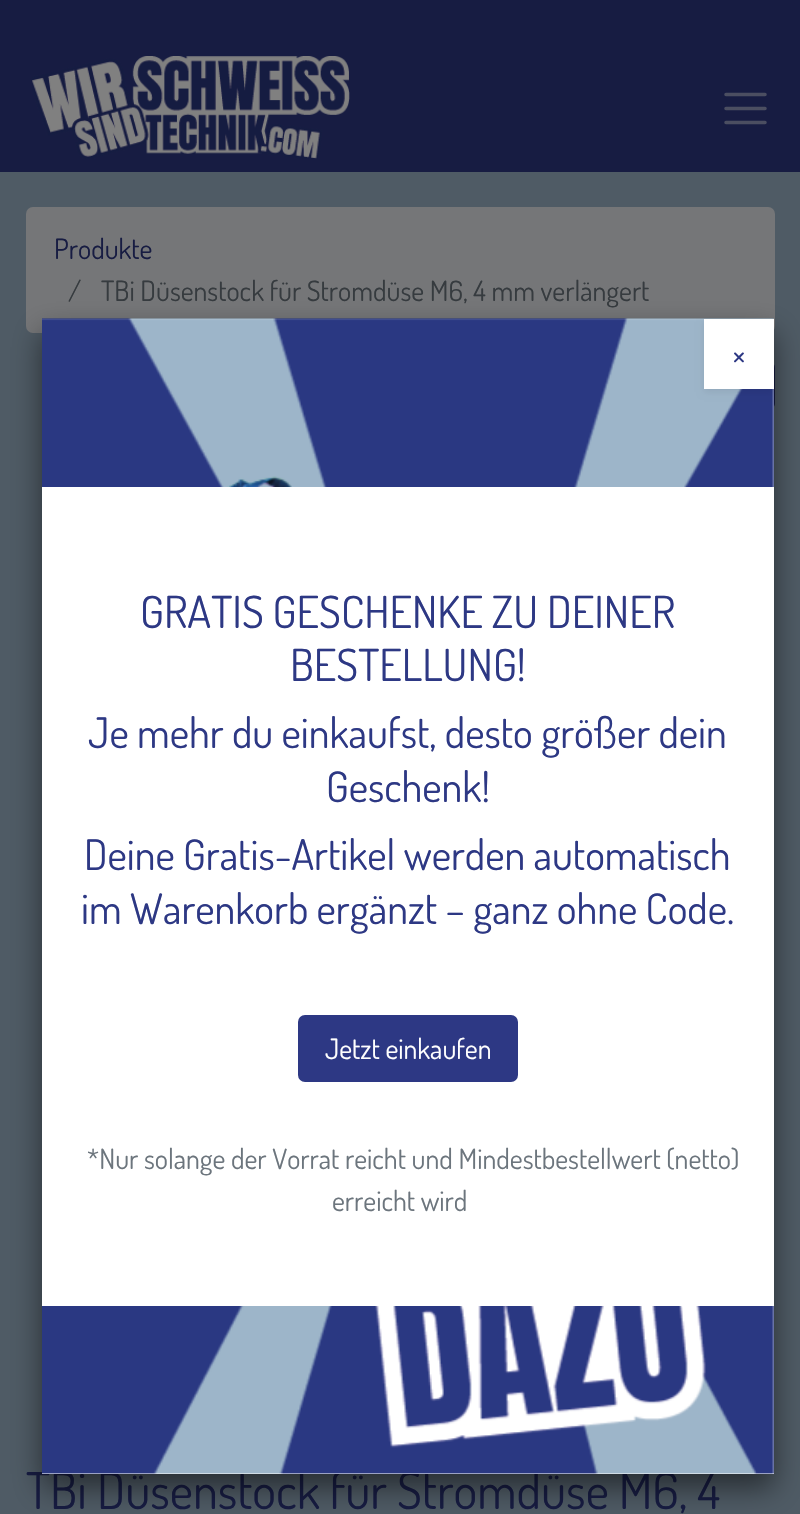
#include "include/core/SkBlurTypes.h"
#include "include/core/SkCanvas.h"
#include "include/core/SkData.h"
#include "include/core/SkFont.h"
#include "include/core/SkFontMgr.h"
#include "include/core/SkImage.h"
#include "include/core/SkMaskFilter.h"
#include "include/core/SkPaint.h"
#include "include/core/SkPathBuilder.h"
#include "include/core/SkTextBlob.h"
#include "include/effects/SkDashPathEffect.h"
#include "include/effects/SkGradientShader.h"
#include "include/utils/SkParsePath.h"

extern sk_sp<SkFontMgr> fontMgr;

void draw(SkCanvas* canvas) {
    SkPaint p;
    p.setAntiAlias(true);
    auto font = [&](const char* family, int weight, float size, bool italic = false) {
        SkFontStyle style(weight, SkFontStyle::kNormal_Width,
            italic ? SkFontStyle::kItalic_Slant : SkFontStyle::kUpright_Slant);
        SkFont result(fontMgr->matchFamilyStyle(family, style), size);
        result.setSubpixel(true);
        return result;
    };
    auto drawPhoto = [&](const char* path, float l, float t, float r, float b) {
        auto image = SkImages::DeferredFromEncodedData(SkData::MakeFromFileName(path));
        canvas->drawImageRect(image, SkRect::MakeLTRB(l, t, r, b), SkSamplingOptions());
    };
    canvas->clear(0xFF4F5B65);
    p.setColor(0xFF171C42);
    canvas->drawRect(SkRect::MakeLTRB(0, 0, 800, 172), p);
    drawPhoto("media/1.png", 32, 56, 350, 159);
    p.setStyle(SkPaint::kStroke_Style);
    p.setStrokeWidth(3.5f);
    p.setStrokeCap(SkPaint::kRound_Cap);
    p.setColor(0xFF4B4E61);
    canvas->drawPath(SkPathBuilder().moveTo(726, 94.5f).lineTo(765, 94.5f).moveTo(726, 108.5f).lineTo(765, 108.5f).moveTo(726, 122.5f).lineTo(765, 122.5f).detach(), p);
    p.setStyle(SkPaint::kFill_Style);
    p.setColor(0xFF757678);
    canvas->drawRoundRect(SkRect::MakeLTRB(26, 207, 775, 333), 7, 7, p);
    auto font1 = font("Dosis", 400, 28);
    p.setColor(0xFF171C42);
    canvas->drawString("Produkte", 54, 259, font1, p);
    p.setColor(0xFF363B3F);
    canvas->drawString("/", 68, 301, font1, p);
    canvas->drawString("TBi Düsenstock für Stromdüse M6, 4 mm verlängert", 101, 301, font1, p);
    p.setColor(0xFF171C42);
    canvas->drawPath(SkPathBuilder().moveTo(735, 361).lineTo(768, 361).cubicTo(772, 361, 775, 364, 775, 368).lineTo(775, 403).cubicTo(775, 407, 772, 410, 768, 410).lineTo(735, 410).close().detach(), p);
    auto font2 = font("Dosis", 400, 50.5f);
    canvas->drawString("TBi Düsenstock für Stromdüse M6, 4", 26, 1509, font2, p);
    p.setColor(0x80000000);
    p.setMaskFilter(SkMaskFilter::MakeBlur(kNormal_SkBlurStyle, 14));
    canvas->drawRect(SkRect::MakeLTRB(42, 333, 774, 1488), p);
    p.setMaskFilter(nullptr);
    p.setColor(0xFFFFFFFF);
    canvas->drawRect(SkRect::MakeLTRB(42, 319, 774, 1474), p);
    drawPhoto("media/2.png", 42, 318, 774, 1474);
    p.setColor(0x12000000);
    p.setMaskFilter(SkMaskFilter::MakeBlur(kNormal_SkBlurStyle, 3.5f));
    canvas->drawRect(SkRect::MakeLTRB(704, 322, 774, 392), p);
    p.setMaskFilter(nullptr);
    p.setColor(0xFFFFFFFF);
    canvas->drawRect(SkRect::MakeLTRB(704, 319, 774, 389), p);
    auto font3 = font("Dosis", 400, 35);
    p.setColor(0xFF2D3884);
    canvas->drawString("×", 732, 367, font3, p);
    p.setColor(0xFFFFFFFF);
    canvas->drawRect(SkRect::MakeLTRB(42, 487, 774, 1306), p);
    auto font4 = font("Dosis", 400, 44.25f);
    p.setColor(0xFF2D3884);
    canvas->drawString("GRATIS GESCHENKE ZU DEINER", 140, 628, font4, p);
    canvas->drawString("BESTELLUNG!", 290, 681, font4, p);
    auto font5 = font("Dosis", 400, 42);
    {
        const struct { const char* s; float x, y; } items[] = {
            {"Je mehr du einkaufst, desto größer dein", 88, 748},
            {"Geschenk!", 326, 802},
            {"Deine Gratis-Artikel werden automatisch", 84, 870},
            {"im Warenkorb ergänzt – ganz ohne Code.", 81, 924},
        };
        for (auto [s, x, y] : items) {
            canvas->drawString(s, x, y, font5, p);
        }
    }
    canvas->drawRoundRect(SkRect::MakeLTRB(299, 1016, 517, 1081), 6, 6, p);
    p.setStyle(SkPaint::kStroke_Style);
    p.setStrokeWidth(2);
    p.setStrokeCap(SkPaint::kButt_Cap);
    canvas->drawRoundRect(SkRect::MakeLTRB(299, 1016, 517, 1081), 6, 6, p);
    p.setStyle(SkPaint::kFill_Style);
    p.setColor(0xFFFFFFFF);
    canvas->drawString("Jetzt einkaufen", 325, 1059, font1, p);
    p.setColor(0xFF6C757D);
    canvas->drawString("*Nur solange der Vorrat reicht und Mindestbestellwert (netto)", 87, 1169, font1, p);
    canvas->drawString("erreicht wird", 332, 1211, font1, p);
}
